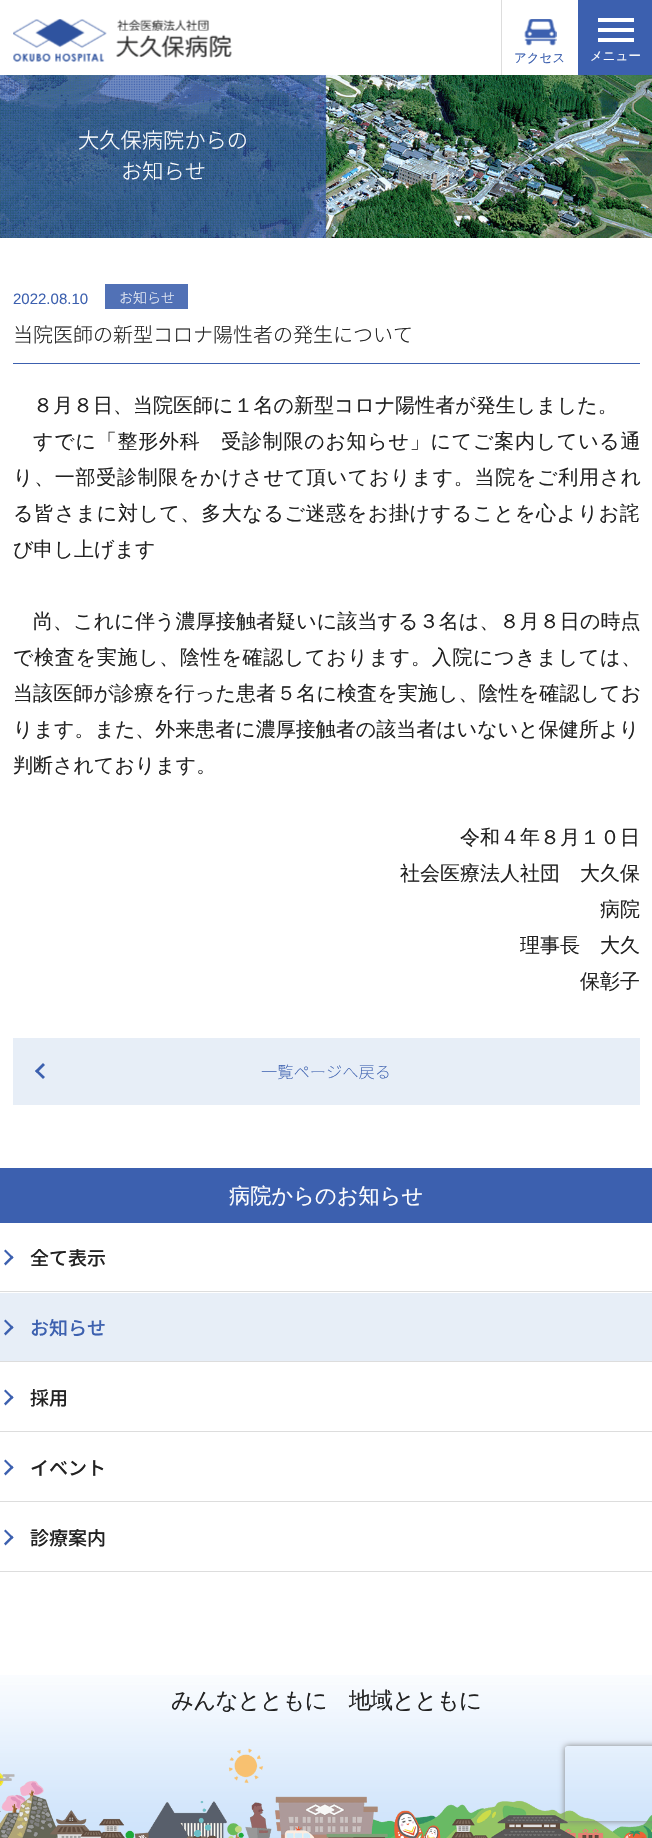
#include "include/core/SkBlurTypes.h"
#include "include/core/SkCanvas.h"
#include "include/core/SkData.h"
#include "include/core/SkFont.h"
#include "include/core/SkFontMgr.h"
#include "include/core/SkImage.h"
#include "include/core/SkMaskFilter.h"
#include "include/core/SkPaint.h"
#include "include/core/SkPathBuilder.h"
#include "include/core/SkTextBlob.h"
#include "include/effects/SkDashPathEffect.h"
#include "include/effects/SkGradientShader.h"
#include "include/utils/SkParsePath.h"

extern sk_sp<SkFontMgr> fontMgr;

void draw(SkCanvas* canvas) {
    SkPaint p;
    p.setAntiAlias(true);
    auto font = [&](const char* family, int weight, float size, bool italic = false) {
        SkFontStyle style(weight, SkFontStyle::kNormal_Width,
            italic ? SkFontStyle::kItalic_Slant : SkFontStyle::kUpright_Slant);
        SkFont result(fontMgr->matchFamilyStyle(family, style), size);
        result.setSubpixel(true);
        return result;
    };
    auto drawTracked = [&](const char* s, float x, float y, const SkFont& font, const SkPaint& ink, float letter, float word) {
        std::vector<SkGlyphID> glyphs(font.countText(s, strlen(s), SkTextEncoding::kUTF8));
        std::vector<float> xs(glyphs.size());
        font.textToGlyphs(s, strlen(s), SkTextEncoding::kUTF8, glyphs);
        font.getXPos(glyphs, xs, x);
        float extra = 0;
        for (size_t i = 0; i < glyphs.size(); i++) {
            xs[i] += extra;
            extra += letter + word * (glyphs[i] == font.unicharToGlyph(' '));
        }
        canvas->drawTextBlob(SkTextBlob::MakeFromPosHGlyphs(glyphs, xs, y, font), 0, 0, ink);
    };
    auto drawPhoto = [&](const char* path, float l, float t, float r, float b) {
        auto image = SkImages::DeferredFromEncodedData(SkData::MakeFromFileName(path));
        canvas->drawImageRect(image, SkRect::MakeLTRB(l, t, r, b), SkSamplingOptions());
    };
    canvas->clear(0xFFFFFFFF);
    drawPhoto("media/1.png", 13, 19, 232, 62);
    p.setColor(0xFFDDDDDD);
    canvas->drawRect(SkRect::MakeLTRB(501, 0, 502, 75), p);
    drawPhoto("media/2.png", 524, 19, 557, 46);
    auto font1 = font("WenQuanYi Zen Hei", 500, 12.5f);
    p.setColor(0xFF3C60AF);
    canvas->drawString("アクセス", 514, 62, font1, p);
    {
        const struct { float l, t, r, b; SkColor color; } items[] = {
            {578, 0, 652, 75, 0xFF3C60AF},
            {598, 18, 634, 22, 0xFFFFFFFF},
            {598, 28, 634, 32, 0xFFFFFFFF},
            {598, 38, 634, 42, 0xFFFFFFFF},
        };
        for (auto [l, t, r, b, color] : items) {
            p.setColor(color);
            canvas->drawRect(SkRect::MakeLTRB(l, t, r, b), p);
        }
    }
    canvas->drawString("メニュー", 590, 60, font1, p);
    drawPhoto("media/3.png", 0, 75, 652, 238);
    p.setColor(0xA62F539F);
    canvas->drawRect(SkRect::MakeLTRB(0, 75, 326, 238), p);
    drawPhoto("media/4.png", 0, 75, 327, 238);
    auto font2 = font("Noto Sans JP", 300, 21.25f);
    p.setColor(0xFFFFFFFF);
    canvas->drawString("大久保病院からの", 78, 148, font2, p);
    canvas->drawString("お知らせ", 121, 179, font2, p);
    auto font3 = font("Liberation Sans", 400, 15);
    p.setColor(0xFF3C60AF);
    canvas->drawString("2022.08.10", 13, 304, font3, p);
    p.setColor(0xFF5171B6);
    canvas->drawRect(SkRect::MakeLTRB(105, 284, 188, 309), p);
    auto font4 = font("Noto Sans JP", 200, 14);
    p.setColor(0xFFFFFFFF);
    canvas->drawString("お知らせ", 119, 303, font4, p);
    p.setColor(0xFF3C60AF);
    canvas->drawRect(SkRect::MakeLTRB(13, 363, 640, 364), p);
    auto font5 = font("Noto Sans JP", 300, 20);
    p.setColor(0xFF222222);
    canvas->drawString("当院医師の新型コロナ陽性者の発生について", 13, 342, font5, p);
    auto font6 = font("WenQuanYi Zen Hei", 500, 20);
    canvas->drawString("８月８日、当院医師に１名の新型コロナ陽性者が発生しました。", 33, 412, font6, p);
    drawTracked("すでに「整形外科　受診制限のお知らせ」にてご案内している通", 33, 448, font6, p, 0.75f, 0);
    drawTracked("り、一部受診制限をかけさせて頂いております。当院をご利用され", 13, 484, font6, p, 0.7f, 0);
    drawTracked("る皆さまに対して、多大なるご迷惑をお掛けすることを心よりお詫", 13, 520, font6, p, 0.6f, 0);
    canvas->drawString("び申し上げます", 13, 556, font6, p);
    drawTracked("尚、これに伴う濃厚接触者疑いに該当する３名は、８月８日の時点", 33, 628, font6, p, 0.1f, 0);
    drawTracked("で検査を実施し、陰性を確認しております。入院につきましては、", 13, 664, font6, p, 0.7f, 0);
    drawTracked("当該医師が診療を行った患者５名に検査を実施し、陰性を確認してお", 13, 700, font6, p, 0.1f, 0);
    {
        const struct { const char* s; float x, y; } items[] = {
            {"ります。また、外来患者に濃厚接触者の該当者はいないと保健所より", 13, 736},
            {"判断されております。", 13, 772},
            {"令和４年８月１０日", 460, 844},
            {"社会医療法人社団　大久保", 400, 880},
            {"病院", 600, 916},
            {"理事長　大久", 520, 952},
            {"保彰子", 580, 988},
        };
        for (auto [s, x, y] : items) {
            canvas->drawString(s, x, y, font6, p);
        }
    }
    p.setColor(0xFFE7EEF7);
    canvas->drawRect(SkRect::MakeLTRB(13, 1038, 640, 1105), p);
    p.setColor(0xFF3C60AF);
    canvas->drawPath(SkPathBuilder().moveTo(35, 1071).lineTo(43, 1063).lineTo(45, 1065).lineTo(37, 1073).close().detach(), p);
    canvas->drawPath(SkPathBuilder().moveTo(35, 1071).lineTo(37, 1069.5f).lineTo(45, 1077).lineTo(43, 1079).close().detach(), p);
    auto font7 = font("Noto Sans JP", 200, 16.25f);
    canvas->drawString("一覧ページへ戻る", 261, 1078, font7, p);
    canvas->drawRect(SkRect::MakeLTRB(0, 1168, 652, 1223), p);
    auto font8 = font("WenQuanYi Zen Hei", 500, 21.25f);
    p.setColor(0xFFFFFFFF);
    canvas->drawString("病院からのお知らせ", 229, 1203, font8, p);
    p.setColor(0xFFDDDDDD);
    canvas->drawRect(SkRect::MakeLTRB(0, 1291, 652, 1292), p);
    p.setColor(0xFF3C60AF);
    canvas->drawPath(SkPathBuilder().moveTo(5.5f, 1249.5f).lineTo(13.5f, 1257.5f).lineTo(12, 1259).lineTo(4, 1251).close().detach(), p);
    canvas->drawPath(SkPathBuilder().moveTo(12, 1255.5f).lineTo(13.5f, 1257.5f).lineTo(5.5f, 1265.5f).lineTo(4, 1263.5f).close().detach(), p);
    auto font9 = font("Noto Sans JP", 500, 19);
    p.setColor(0xFF222222);
    canvas->drawString("全て表示", 30, 1265, font9, p);
    p.setColor(0xFFDDDDDD);
    canvas->drawRect(SkRect::MakeLTRB(0, 1361, 652, 1362), p);
    p.setColor(0xFFE7EEF7);
    canvas->drawRect(SkRect::MakeLTRB(0, 1293, 652, 1361), p);
    p.setColor(0xFF3C60AF);
    canvas->drawPath(SkPathBuilder().moveTo(5.5f, 1319.5f).lineTo(13.5f, 1327.5f).lineTo(12, 1329).lineTo(4, 1321).close().detach(), p);
    canvas->drawPath(SkPathBuilder().moveTo(12, 1325.5f).lineTo(13.5f, 1327.5f).lineTo(5.5f, 1335.5f).lineTo(4, 1333.5f).close().detach(), p);
    canvas->drawString("お知らせ", 30, 1335, font9, p);
    p.setColor(0xFFDDDDDD);
    canvas->drawRect(SkRect::MakeLTRB(0, 1431, 652, 1432), p);
    p.setColor(0xFF3C60AF);
    canvas->drawPath(SkPathBuilder().moveTo(5.5f, 1389.5f).lineTo(13.5f, 1397.5f).lineTo(12, 1399).lineTo(4, 1391).close().detach(), p);
    canvas->drawPath(SkPathBuilder().moveTo(12, 1395.5f).lineTo(13.5f, 1397.5f).lineTo(5.5f, 1405.5f).lineTo(4, 1403.5f).close().detach(), p);
    p.setColor(0xFF222222);
    canvas->drawString("採用", 30, 1405, font9, p);
    p.setColor(0xFFDDDDDD);
    canvas->drawRect(SkRect::MakeLTRB(0, 1501, 652, 1502), p);
    p.setColor(0xFF3C60AF);
    canvas->drawPath(SkPathBuilder().moveTo(5.5f, 1459.5f).lineTo(13.5f, 1467.5f).lineTo(12, 1469).lineTo(4, 1461).close().detach(), p);
    canvas->drawPath(SkPathBuilder().moveTo(12, 1465.5f).lineTo(13.5f, 1467.5f).lineTo(5.5f, 1475.5f).lineTo(4, 1473.5f).close().detach(), p);
    p.setColor(0xFF222222);
    canvas->drawString("イベント", 30, 1475, font9, p);
    p.setColor(0xFFDDDDDD);
    canvas->drawRect(SkRect::MakeLTRB(0, 1571, 652, 1572), p);
    p.setColor(0xFF3C60AF);
    canvas->drawPath(SkPathBuilder().moveTo(5.5f, 1529.5f).lineTo(13.5f, 1537.5f).lineTo(12, 1539).lineTo(4, 1531).close().detach(), p);
    canvas->drawPath(SkPathBuilder().moveTo(12, 1535.5f).lineTo(13.5f, 1537.5f).lineTo(5.5f, 1545.5f).lineTo(4, 1543.5f).close().detach(), p);
    p.setColor(0xFF222222);
    canvas->drawString("診療案内", 30, 1545, font9, p);
    drawPhoto("media/5.png", 0, 1675, 652, 1838);
    auto font10 = font("WenQuanYi Zen Hei", 500, 22.5f);
    drawTracked("みんなとともに　地域とともに", 171, 1708, font10, p, -0.75f, 0);
    drawPhoto("media/6.png", 0, 1748, 652, 1838);
    canvas->save();
    canvas->clipPath(SkPathBuilder(SkPathFillType::kEvenOdd).moveTo(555, 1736).lineTo(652, 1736).lineTo(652, 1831).lineTo(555, 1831).close().moveTo(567.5f, 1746).lineTo(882.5f, 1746).cubicTo(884, 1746, 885, 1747, 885, 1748.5f).lineTo(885, 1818.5f).cubicTo(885, 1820, 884, 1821, 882.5f, 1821).lineTo(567.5f, 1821).cubicTo(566, 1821, 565, 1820, 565, 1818.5f).lineTo(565, 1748.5f).cubicTo(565, 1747, 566, 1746, 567.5f, 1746).close().detach(), true);
    p.setColor(0xFF808080);
    p.setMaskFilter(SkMaskFilter::MakeBlur(kNormal_SkBlurStyle, 3));
    canvas->drawRoundRect(SkRect::MakeLTRB(565, 1746, 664, 1821), 2.5f, 2.5f, p);
    p.setMaskFilter(nullptr);
    canvas->restore();
}
